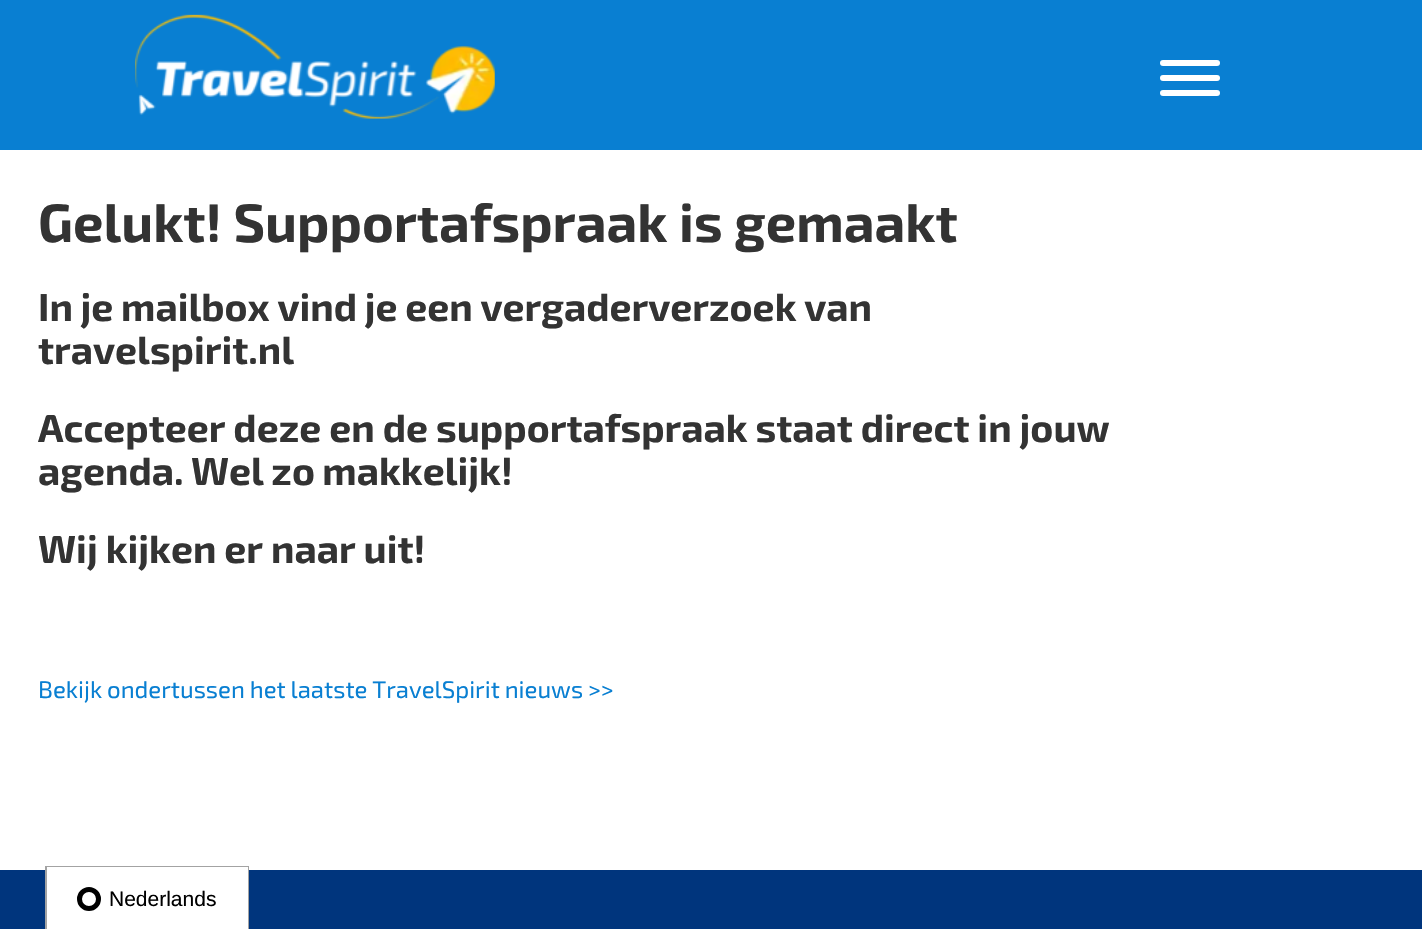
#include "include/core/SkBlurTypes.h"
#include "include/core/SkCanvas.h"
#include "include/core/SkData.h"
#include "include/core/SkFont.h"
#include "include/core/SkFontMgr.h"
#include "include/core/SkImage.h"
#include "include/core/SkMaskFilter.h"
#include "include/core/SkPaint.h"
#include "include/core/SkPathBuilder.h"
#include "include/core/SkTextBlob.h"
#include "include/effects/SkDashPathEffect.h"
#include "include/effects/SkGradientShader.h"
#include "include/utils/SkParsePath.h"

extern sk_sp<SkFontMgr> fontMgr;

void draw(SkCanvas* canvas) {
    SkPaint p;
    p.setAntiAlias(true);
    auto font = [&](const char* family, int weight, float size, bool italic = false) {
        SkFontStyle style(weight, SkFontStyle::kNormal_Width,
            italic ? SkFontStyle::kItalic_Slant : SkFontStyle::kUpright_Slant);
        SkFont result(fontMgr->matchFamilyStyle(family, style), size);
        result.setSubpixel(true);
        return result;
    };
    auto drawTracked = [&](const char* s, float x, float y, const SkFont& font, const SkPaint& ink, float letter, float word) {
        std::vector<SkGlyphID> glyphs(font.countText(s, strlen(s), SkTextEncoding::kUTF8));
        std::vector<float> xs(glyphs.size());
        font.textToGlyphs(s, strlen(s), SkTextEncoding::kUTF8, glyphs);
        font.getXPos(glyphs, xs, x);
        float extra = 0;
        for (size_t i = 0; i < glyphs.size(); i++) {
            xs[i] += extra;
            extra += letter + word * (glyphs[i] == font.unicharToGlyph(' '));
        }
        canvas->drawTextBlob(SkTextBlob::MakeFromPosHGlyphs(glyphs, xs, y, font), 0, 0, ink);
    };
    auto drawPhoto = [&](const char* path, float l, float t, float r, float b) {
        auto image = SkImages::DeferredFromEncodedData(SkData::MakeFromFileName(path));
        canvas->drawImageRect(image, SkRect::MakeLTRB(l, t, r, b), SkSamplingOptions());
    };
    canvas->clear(0xFFFFFFFF);
    p.setColor(0xFF097FD2);
    canvas->drawRect(SkRect::MakeLTRB(0, 0, 1422, 150), p);
    drawPhoto("media/1.png", 135, 14, 495, 119);
    p.setColor(0xFFFFFFFF);
    canvas->drawRoundRect(SkRect::MakeLTRB(1160, 60, 1220, 66), 3, 3, p);
    canvas->drawRoundRect(SkRect::MakeLTRB(1160, 75, 1220, 81), 3, 3, p);
    canvas->drawRoundRect(SkRect::MakeLTRB(1160, 90, 1220, 96), 3, 3, p);
    auto font1 = font("Exo 2", 700, 54);
    p.setColor(0xFF333333);
    canvas->drawString("Gelukt! Supportafspraak is gemaakt", 38, 242, font1, p);
    auto font2 = font("Exo 2", 700, 39.05f);
    drawTracked("In je mailbox vind je een vergaderverzoek van", 38, 321, font2, p, 0, -0.75f);
    canvas->drawString("travelspirit.nl", 38, 364, font2, p);
    drawTracked("Accepteer deze en de supportafspraak staat direct in jouw", 38, 442, font2, p, 0, -0.5f);
    drawTracked("agenda. Wel zo makkelijk!", 38, 485, font2, p, 0, -1);
    drawTracked("Wij kijken er naar uit!", 38, 563, font2, p, 0, -0.5f);
    auto font3 = font("Exo 2", 400, 24);
    p.setColor(0xFF097FD2);
    drawTracked("Bekijk ondertussen het laatste TravelSpirit nieuws >>", 38, 698, font3, p, 0, -0.5f);
    p.setColor(0xFF00357D);
    canvas->drawRect(SkRect::MakeLTRB(0, 870, 1422, 929), p);
    p.setStyle(SkPaint::kStroke_Style);
    p.setStrokeWidth(2);
    p.setColor(0xFFA3A3A3);
    canvas->drawRect(SkRect::MakeLTRB(46, 867, 248, 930), p);
    p.setStyle(SkPaint::kFill_Style);
    p.setColor(0xFFFFFFFF);
    canvas->drawRect(SkRect::MakeLTRB(47, 867, 248, 929), p);
    p.setStyle(SkPaint::kStroke_Style);
    p.setStrokeWidth(5);
    p.setColor(0xFF000000);
    canvas->drawCircle(89, 899, 9.5f, p);
    auto font4 = font("Liberation Sans", 400, 21);
    p.setStyle(SkPaint::kFill_Style);
    canvas->drawString("Nederlands", 109, 906, font4, p);
}
